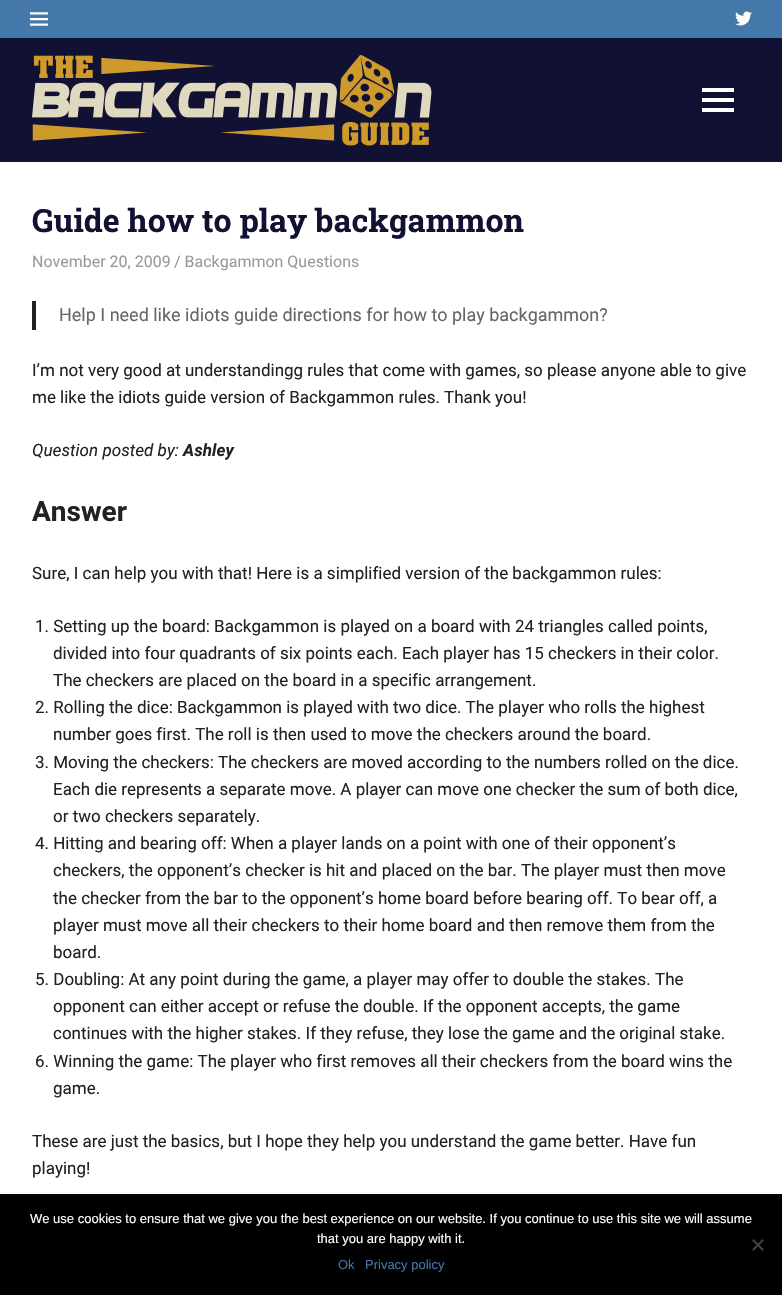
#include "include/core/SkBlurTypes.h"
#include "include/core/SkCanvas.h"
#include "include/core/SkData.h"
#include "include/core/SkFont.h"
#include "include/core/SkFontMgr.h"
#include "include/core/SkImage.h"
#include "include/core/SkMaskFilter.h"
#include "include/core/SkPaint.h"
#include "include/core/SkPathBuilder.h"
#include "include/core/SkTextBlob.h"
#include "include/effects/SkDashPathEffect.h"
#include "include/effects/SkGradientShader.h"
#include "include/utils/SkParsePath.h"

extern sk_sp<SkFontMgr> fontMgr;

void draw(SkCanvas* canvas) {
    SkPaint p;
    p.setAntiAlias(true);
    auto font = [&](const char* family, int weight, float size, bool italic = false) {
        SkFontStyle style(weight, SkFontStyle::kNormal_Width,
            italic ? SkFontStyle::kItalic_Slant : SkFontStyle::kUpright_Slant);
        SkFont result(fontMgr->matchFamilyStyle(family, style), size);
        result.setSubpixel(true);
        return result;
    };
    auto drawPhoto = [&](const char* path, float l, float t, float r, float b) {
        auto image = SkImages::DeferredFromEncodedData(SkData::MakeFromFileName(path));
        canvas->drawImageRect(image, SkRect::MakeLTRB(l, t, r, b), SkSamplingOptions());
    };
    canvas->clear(0xFFFFFFFF);
    p.setColor(0xFF4477AA);
    canvas->drawRect(SkRect::MakeLTRB(0, 0, 782, 38), p);
    drawPhoto("media/1.png", 30, 12, 48, 26);
    drawPhoto("media/2.png", 735, 11, 752, 26);
    p.setColor(0xFF111133);
    canvas->drawRect(SkRect::MakeLTRB(0, 38, 782, 162), p);
    drawPhoto("media/3.png", 32, 55, 432, 146);
    drawPhoto("media/4.png", 702, 88, 734, 112);
    auto font1 = font("Roboto Slab", 700, 32);
    canvas->drawString("Guide how to play backgammon", 32, 232, font1, p);
    auto font2 = font("Roboto", 400, 16);
    p.setColor(0xFF999999);
    canvas->drawString("November 20, 2009", 32, 267, font2, p);
    canvas->drawString("/ Backgammon Questions", 174, 267, font2, p);
    p.setColor(0xFF222222);
    canvas->drawRect(SkRect::MakeLTRB(32, 301, 36, 330), p);
    auto font3 = font("Roboto", 400, 18);
    p.setColor(0xFF666666);
    canvas->drawString("Help I need like idiots guide directions for how to play backgammon?", 59, 321, font3, p);
    auto font4 = font("Roboto", 400, 17);
    p.setColor(0xFF222222);
    canvas->drawString("I’m not very good at understandingg rules that come with games, so please anyone able to give", 32, 376, font4, p);
    canvas->drawString("me like the idiots guide version of Backgammon rules. Thank you!", 32, 403, font4, p);
    auto font5 = font("Roboto", 400, 17, true);
    canvas->drawString("Question posted by:", 32, 456, font5, p);
    auto font6 = font("Roboto", 700, 17, true);
    canvas->drawString("Ashley", 183, 456, font6, p);
    auto font7 = font("Roboto", 700, 28);
    canvas->drawString("Answer", 32, 521, font7, p);
    {
        const struct { const char* s; float x, y; } items[] = {
            {"Sure, I can help you with that! Here is a simplified version of the backgammon rules:", 32, 579},
            {"1. Setting up the board: Backgammon is played on a board with 24 triangles called points,", 35, 632},
            {"divided into four quadrants of six points each. Each player has 15 checkers in their color.", 53, 659},
            {"The checkers are placed on the board in a specific arrangement.", 53, 686},
            {"2. Rolling the dice: Backgammon is played with two dice. The player who rolls the highest", 35, 713},
            {"number goes first. The roll is then used to move the checkers around the board.", 53, 740},
            {"3. Moving the checkers: The checkers are moved according to the numbers rolled on the dice.", 35, 768},
            {"Each die represents a separate move. A player can move one checker the sum of both dice,", 53, 795},
            {"or two checkers separately.", 53, 822},
            {"4. Hitting and bearing off: When a player lands on a point with one of their opponent’s", 35, 849},
            {"checkers, the opponent’s checker is hit and placed on the bar. The player must then move", 53, 876},
            {"the checker from the bar to the opponent’s home board before bearing off. To bear off, a", 53, 904},
            {"player must move all their checkers to their home board and then remove them from the", 53, 931},
            {"board.", 53, 958},
            {"5. Doubling: At any point during the game, a player may offer to double the stakes. The", 35, 985},
            {"opponent can either accept or refuse the double. If the opponent accepts, the game", 53, 1012},
            {"continues with the higher stakes. If they refuse, they lose the game and the original stake.", 53, 1039},
            {"6. Winning the game: The player who first removes all their checkers from the board wins the", 35, 1067},
            {"game.", 53, 1094},
            {"These are just the basics, but I hope they help you understand the game better. Have fun", 32, 1147},
            {"playing!", 32, 1174},
        };
        for (auto [s, x, y] : items) {
            canvas->drawString(s, x, y, font4, p);
        }
    }
    p.setColor(0xFF000000);
    canvas->drawRect(SkRect::MakeLTRB(0, 1194, 782, 1295), p);
    auto font8 = font("Liberation Sans", 400, 13);
    p.setColor(0xFFFFFFFF);
    canvas->drawString("We use cookies to ensure that we give you the best experience on our website. If you continue to use this site we will assume", 30, 1223, font8, p);
    canvas->drawString("that you are happy with it.", 317, 1243, font8, p);
    p.setColor(0xFF404040);
    canvas->drawPath(SkPathBuilder().moveTo(762.5f, 1239).lineTo(764, 1240.5f).lineTo(753.5f, 1251).lineTo(752, 1249.5f).close().detach(), p);
    canvas->drawPath(SkPathBuilder().moveTo(752, 1240.5f).lineTo(753.5f, 1239).lineTo(764, 1249.5f).lineTo(762.5f, 1251).close().detach(), p);
    p.setColor(0xFF4477AA);
    canvas->drawString("Ok", 338, 1269, font8, p);
    canvas->drawString("Privacy policy", 365, 1269, font8, p);
}
